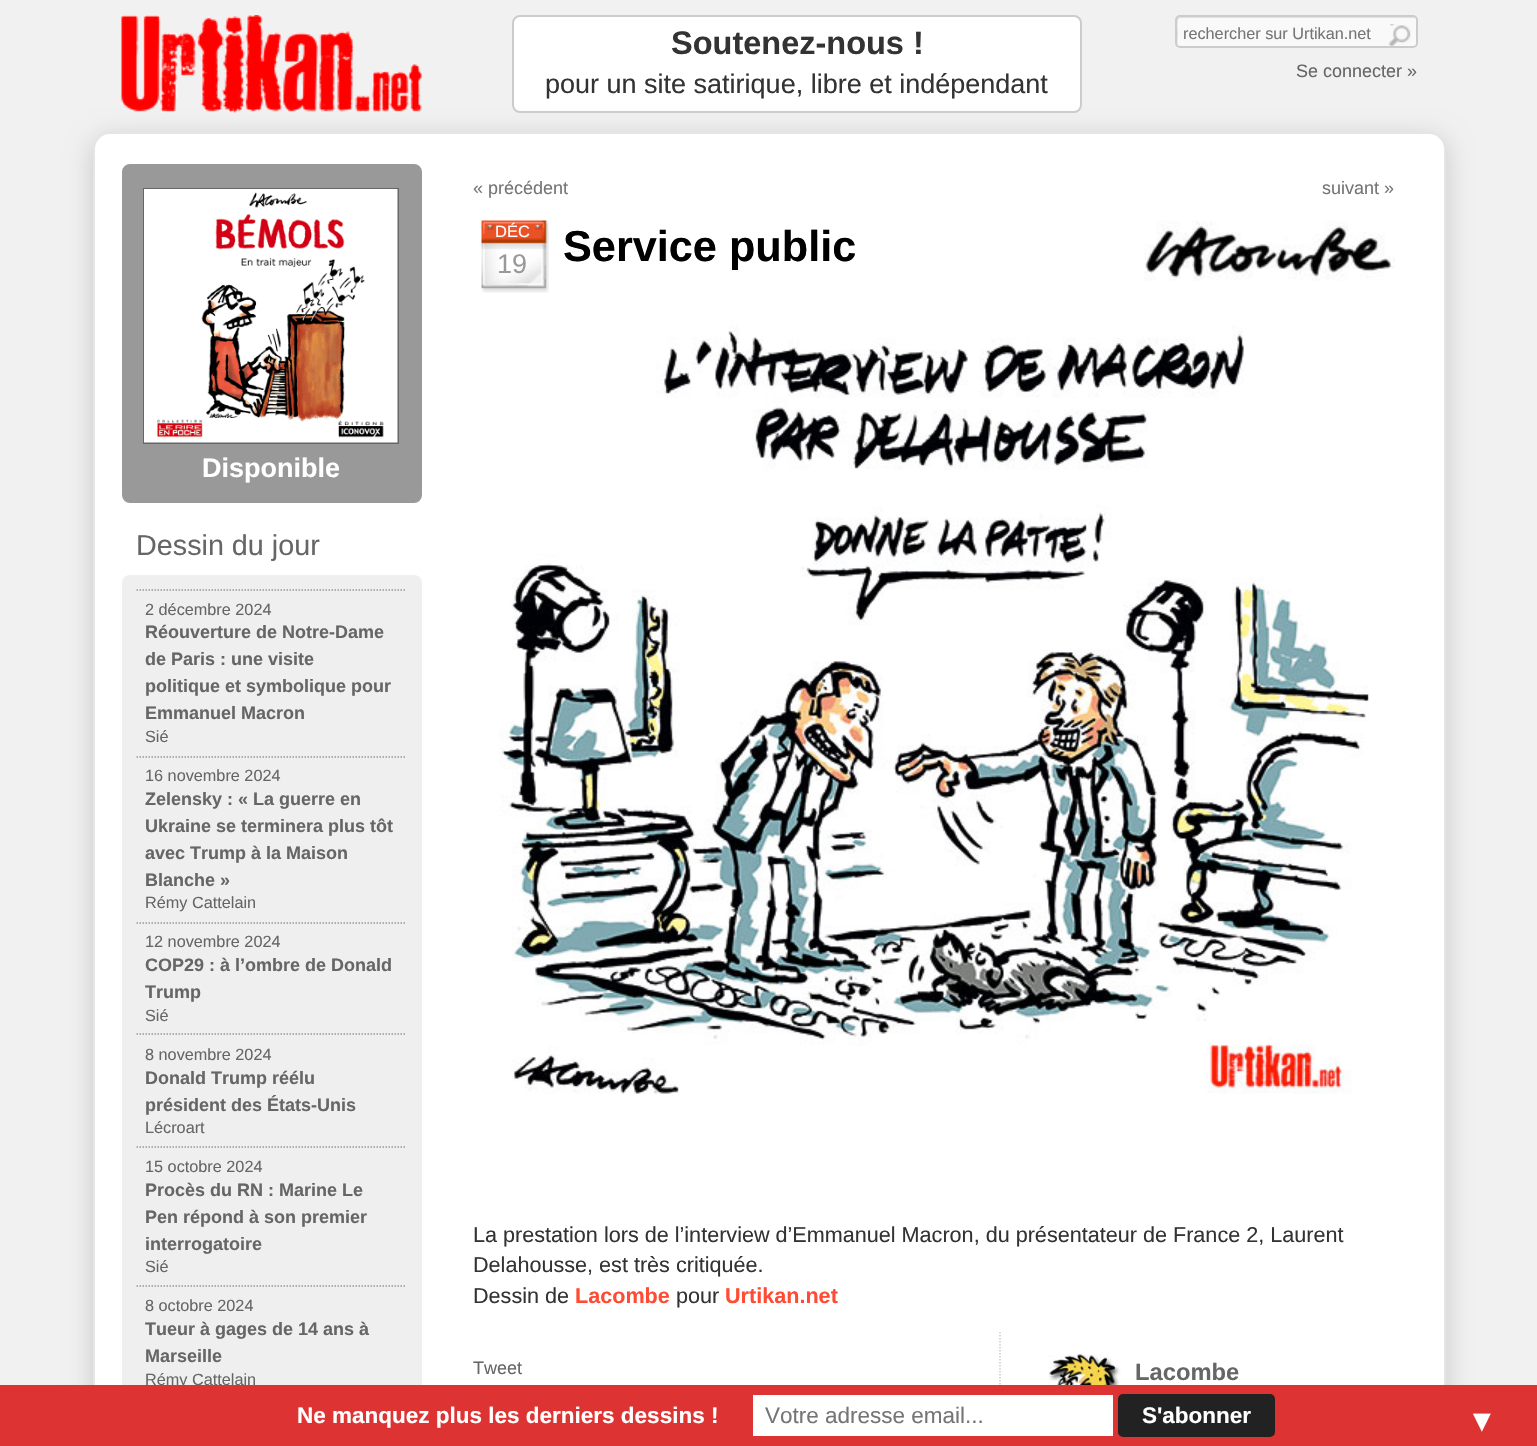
#include "include/core/SkBlurTypes.h"
#include "include/core/SkCanvas.h"
#include "include/core/SkData.h"
#include "include/core/SkFont.h"
#include "include/core/SkFontMgr.h"
#include "include/core/SkImage.h"
#include "include/core/SkMaskFilter.h"
#include "include/core/SkPaint.h"
#include "include/core/SkPathBuilder.h"
#include "include/core/SkTextBlob.h"
#include "include/effects/SkDashPathEffect.h"
#include "include/effects/SkGradientShader.h"
#include "include/utils/SkParsePath.h"

extern sk_sp<SkFontMgr> fontMgr;

void draw(SkCanvas* canvas) {
    SkPaint p;
    p.setAntiAlias(true);
    auto font = [&](const char* family, int weight, float size, bool italic = false) {
        SkFontStyle style(weight, SkFontStyle::kNormal_Width,
            italic ? SkFontStyle::kItalic_Slant : SkFontStyle::kUpright_Slant);
        SkFont result(fontMgr->matchFamilyStyle(family, style), size);
        result.setSubpixel(true);
        return result;
    };
    auto drawPhoto = [&](const char* path, float l, float t, float r, float b) {
        auto image = SkImages::DeferredFromEncodedData(SkData::MakeFromFileName(path));
        canvas->drawImageRect(image, SkRect::MakeLTRB(l, t, r, b), SkSamplingOptions());
    };
    canvas->clear(0xFFF1F1F1);
    drawPhoto("media/1.png", 121, 15, 422, 113);
    p.setColor(0xFFFFFFFF);
    canvas->drawRoundRect(SkRect::MakeLTRB(513, 16, 1081, 112), 7, 7, p);
    p.setStyle(SkPaint::kStroke_Style);
    p.setStrokeWidth(2);
    p.setColor(0xFFCCCCCC);
    canvas->drawRoundRect(SkRect::MakeLTRB(513, 16, 1081, 112), 7, 7, p);
    auto font1 = font("Liberation Sans", 700, 32.5f);
    p.setStyle(SkPaint::kFill_Style);
    p.setColor(0xFF333333);
    canvas->drawString("Soutenez-nous !", 671, 54, font1, p);
    auto font2 = font("Liberation Sans", 400, 27);
    canvas->drawString("pour un site satirique, libre et indépendant", 545, 93, font2, p);
    p.setColor(0xFFF9F9F9);
    canvas->drawRoundRect(SkRect::MakeLTRB(1175, 15, 1418, 48), 5, 5, p);
    p.setColor(0xFFE0E0E0);
    canvas->drawPath(SkPathBuilder().moveTo(1180, 18).lineTo(1415, 18).cubicTo(1415, 17, 1414, 17, 1413, 17).lineTo(1179, 17).cubicTo(1177, 17, 1176, 18, 1176, 20).lineTo(1176, 44).cubicTo(1176, 45, 1177, 47, 1178, 47).cubicTo(1177, 44, 1178, 36, 1178, 33).cubicTo(1178, 31, 1176, 18, 1180, 18).close().detach(), p);
    p.setStyle(SkPaint::kStroke_Style);
    p.setColor(0xFFCCCCCC);
    canvas->drawRoundRect(SkRect::MakeLTRB(1176, 16, 1417, 47), 4, 4, p);
    canvas->save();
    canvas->clipRect(SkRect::MakeLTRB(1184, 24, 1379, 42));
    auto font3 = font("Liberation Sans", 400, 16.25f);
    p.setStyle(SkPaint::kFill_Style);
    p.setColor(0xFF757575);
    canvas->drawString("rechercher sur Urtikan.net", 1183, 39, font3, p);
    canvas->restore();
    drawPhoto("media/2.png", 1388, 24, 1411, 46);
    auto font4 = font("Liberation Sans", 400, 18);
    p.setColor(0xFF666666);
    canvas->drawString("Se connecter »", 1296, 77, font4, p);
    p.setColor(0xFFC8C8C8);
    p.setMaskFilter(SkMaskFilter::MakeBlur(kNormal_SkBlurStyle, 13.5f));
    canvas->drawRoundRect(SkRect::MakeLTRB(93, 138, 1446, 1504), 17, 17, p);
    p.setMaskFilter(nullptr);
    p.setColor(0xFFFFFFFF);
    canvas->drawRoundRect(SkRect::MakeLTRB(94, 133, 1445, 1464), 16, 16, p);
    p.setStyle(SkPaint::kStroke_Style);
    p.setColor(0xFFE5E5E5);
    canvas->drawRoundRect(SkRect::MakeLTRB(94, 133, 1445, 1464), 16, 16, p);
    p.setStyle(SkPaint::kFill_Style);
    p.setColor(0xFF999999);
    canvas->drawRoundRect(SkRect::MakeLTRB(123, 165, 421, 502), 7, 7, p);
    p.setStyle(SkPaint::kStroke_Style);
    canvas->drawRoundRect(SkRect::MakeLTRB(123, 165, 421, 502), 7, 7, p);
    p.setColor(0xFF666666);
    canvas->drawRect(SkRect::MakeLTRB(144, 189, 398, 443), p);
    drawPhoto("media/3.png", 144, 189, 398, 443);
    auto font5 = font("Liberation Sans", 700, 27);
    p.setStyle(SkPaint::kFill_Style);
    p.setColor(0xFFFFFFFF);
    canvas->drawString("Disponible", 202, 477, font5, p);
    auto font6 = font("Liberation Sans", 400, 28.75f);
    p.setColor(0xFF666666);
    canvas->drawString("Dessin du jour", 136, 555, font6, p);
    p.setColor(0xFFEFEFEF);
    canvas->drawRoundRect(SkRect::MakeLTRB(122, 575, 422, 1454), 8, 8, p);
    p.setStyle(SkPaint::kStroke_Style);
    p.setStrokeWidth(1.5f);
    p.setColor(0xFF999999);
    p.setPathEffect(SkDashPathEffect::Make({{1.5f, 1.5f}}, 0));
    canvas->drawPath(SkPathBuilder().moveTo(136.5f, 590).lineTo(406.5f, 590).detach(), p);
    p.setPathEffect(nullptr);
    p.setStyle(SkPaint::kFill_Style);
    p.setColor(0xFF666666);
    canvas->drawString("2 décembre 2024", 145, 615, font3, p);
    auto font7 = font("Liberation Sans", 700, 18);
    {
        const struct { const char* s; float x, y; } items[] = {
            {"Réouverture de Notre-Dame", 145, 638},
            {"de Paris : une visite", 145, 665},
            {"politique et symbolique pour", 145, 692},
            {"Emmanuel Macron", 145, 719},
        };
        for (auto [s, x, y] : items) {
            canvas->drawString(s, x, y, font7, p);
        }
    }
    canvas->drawString("Sié", 145, 742, font3, p);
    p.setStyle(SkPaint::kStroke_Style);
    p.setColor(0xFF999999);
    p.setPathEffect(SkDashPathEffect::Make({{1.5f, 1.5f}}, 0));
    canvas->drawPath(SkPathBuilder().moveTo(136.5f, 757).lineTo(406.5f, 757).detach(), p);
    p.setPathEffect(nullptr);
    p.setStyle(SkPaint::kFill_Style);
    p.setColor(0xFF666666);
    canvas->drawString("16 novembre 2024", 145, 781, font3, p);
    {
        const struct { const char* s; float x, y; } items[] = {
            {"Zelensky : « La guerre en", 145, 805},
            {"Ukraine se terminera plus tôt", 145, 832},
            {"avec Trump à la Maison", 145, 859},
            {"Blanche »", 145, 886},
        };
        for (auto [s, x, y] : items) {
            canvas->drawString(s, x, y, font7, p);
        }
    }
    canvas->drawString("Rémy Cattelain", 145, 908, font3, p);
    p.setStyle(SkPaint::kStroke_Style);
    p.setColor(0xFF999999);
    p.setPathEffect(SkDashPathEffect::Make({{1.5f, 1.5f}}, 0));
    canvas->drawPath(SkPathBuilder().moveTo(136.5f, 923).lineTo(406.5f, 923).detach(), p);
    p.setPathEffect(nullptr);
    p.setStyle(SkPaint::kFill_Style);
    p.setColor(0xFF666666);
    canvas->drawString("12 novembre 2024", 145, 947, font3, p);
    canvas->drawString("COP29 : à l’ombre de Donald", 145, 971, font7, p);
    canvas->drawString("Trump", 145, 998, font7, p);
    canvas->drawString("Sié", 145, 1021, font3, p);
    p.setStyle(SkPaint::kStroke_Style);
    p.setColor(0xFF999999);
    p.setPathEffect(SkDashPathEffect::Make({{1.5f, 1.5f}}, 0));
    canvas->drawPath(SkPathBuilder().moveTo(136.5f, 1034).lineTo(406.5f, 1034).detach(), p);
    p.setPathEffect(nullptr);
    p.setStyle(SkPaint::kFill_Style);
    p.setColor(0xFF666666);
    canvas->drawString("8 novembre 2024", 145, 1060, font3, p);
    canvas->drawString("Donald Trump réélu", 145, 1084, font7, p);
    canvas->drawString("président des États-Unis", 145, 1111, font7, p);
    canvas->drawString("Lécroart", 145, 1133, font3, p);
    p.setStyle(SkPaint::kStroke_Style);
    p.setColor(0xFF999999);
    p.setPathEffect(SkDashPathEffect::Make({{1.5f, 1.5f}}, 0));
    canvas->drawPath(SkPathBuilder().moveTo(136.5f, 1147).lineTo(406.5f, 1147).detach(), p);
    p.setPathEffect(nullptr);
    p.setStyle(SkPaint::kFill_Style);
    p.setColor(0xFF666666);
    canvas->drawString("15 octobre 2024", 145, 1172, font3, p);
    {
        const struct { const char* s; float x, y; } items[] = {
            {"Procès du RN : Marine Le", 145, 1196},
            {"Pen répond à son premier", 145, 1223},
            {"interrogatoire", 145, 1250},
        };
        for (auto [s, x, y] : items) {
            canvas->drawString(s, x, y, font7, p);
        }
    }
    canvas->drawString("Sié", 145, 1272, font3, p);
    p.setStyle(SkPaint::kStroke_Style);
    p.setColor(0xFF999999);
    p.setPathEffect(SkDashPathEffect::Make({{1.5f, 1.5f}}, 0));
    canvas->drawPath(SkPathBuilder().moveTo(136.5f, 1286).lineTo(406.5f, 1286).detach(), p);
    p.setPathEffect(nullptr);
    p.setStyle(SkPaint::kFill_Style);
    p.setColor(0xFF666666);
    canvas->drawString("8 octobre 2024", 145, 1311, font3, p);
    canvas->drawString("Tueur à gages de 14 ans à", 145, 1335, font7, p);
    canvas->drawString("Marseille", 145, 1362, font7, p);
    canvas->drawString("Rémy Cattelain", 145, 1385, font3, p);
    p.setColor(0xFF757575);
    canvas->drawString("« précédent", 473, 194, font4, p);
    canvas->drawString("suivant »", 1322, 194, font4, p);
    drawPhoto("media/4.png", 481, 220, 549, 293);
    auto font8 = font("Liberation Sans", 400, 16.5f);
    p.setColor(0xFFFFFFFF);
    canvas->drawString("DÉC", 495, 237, font8, p);
    p.setColor(0xFF999999);
    canvas->drawString("19", 497, 273, font2, p);
    auto font9 = font("Liberation Sans", 700, 43.25f);
    p.setColor(0xFF000000);
    canvas->drawString("Service public", 563, 261, font9, p);
    drawPhoto("media/5.png", 1144, 220, 1395, 281);
    drawPhoto("media/6.png", 499, 325, 1369, 1094);
    auto font10 = font("Liberation Sans", 400, 21.6f);
    p.setColor(0xFF333333);
    {
        const struct { const char* s; float x, y; } items[] = {
            {"La prestation lors de l’interview d’Emmanuel Macron, du présentateur de France 2, Laurent", 473, 1242},
            {"Delahousse, est très critiquée.", 473, 1272},
            {"Dessin de", 473, 1303},
        };
        for (auto [s, x, y] : items) {
            canvas->drawString(s, x, y, font10, p);
        }
    }
    auto font11 = font("Liberation Sans", 700, 21.6f);
    p.setColor(0xFFFF4B33);
    canvas->drawString("Lacombe", 575, 1303, font11, p);
    p.setColor(0xFF333333);
    canvas->drawString("pour", 676, 1303, font10, p);
    p.setColor(0xFFFF4B33);
    canvas->drawString("Urtikan.net", 725, 1303, font11, p);
    p.setColor(0xFF666666);
    canvas->drawString("Tweet", 473, 1374, font4, p);
    p.setStyle(SkPaint::kStroke_Style);
    p.setColor(0xFFCCCCCC);
    p.setPathEffect(SkDashPathEffect::Make({{1.5f, 1.5f}}, 0));
    canvas->drawPath(SkPathBuilder().moveTo(1000, 1332).lineTo(1000, 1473).detach(), p);
    p.setPathEffect(nullptr);
    drawPhoto("media/7.png", 1040, 1354, 1121, 1385);
    auto font12 = font("Liberation Sans", 700, 23.75f);
    p.setStyle(SkPaint::kFill_Style);
    p.setColor(0xFF666666);
    canvas->drawString("Lacombe", 1135, 1380, font12, p);
    p.setColor(0xFFDD3333);
    canvas->drawRect(SkRect::MakeLTRB(0, 1385, 1537, 1446), p);
    auto font13 = font("Liberation Sans", 700, 22.5f);
    p.setColor(0xFFFFFFFF);
    canvas->drawString("Ne manquez plus les derniers dessins !", 297, 1423, font13, p);
    canvas->drawRect(SkRect::MakeLTRB(753, 1395, 1113, 1436), p);
    auto font14 = font("Liberation Sans", 400, 22.5f);
    p.setColor(0xFF757575);
    canvas->drawString("Votre adresse email...", 765, 1423, font14, p);
    p.setColor(0xFF222222);
    canvas->drawRoundRect(SkRect::MakeLTRB(1119, 1395, 1274, 1436), 4, 4, p);
    p.setStyle(SkPaint::kStroke_Style);
    p.setStrokeWidth(2);
    canvas->drawRoundRect(SkRect::MakeLTRB(1119, 1395, 1274, 1436), 4, 4, p);
    p.setStyle(SkPaint::kFill_Style);
    p.setColor(0xFFFFFFFF);
    canvas->drawString("S'abonner", 1142, 1423, font13, p);
    auto font15 = font("Liberation Sans", 400, 30);
    canvas->drawString("▼", 1467, 1431, font15, p);
}
